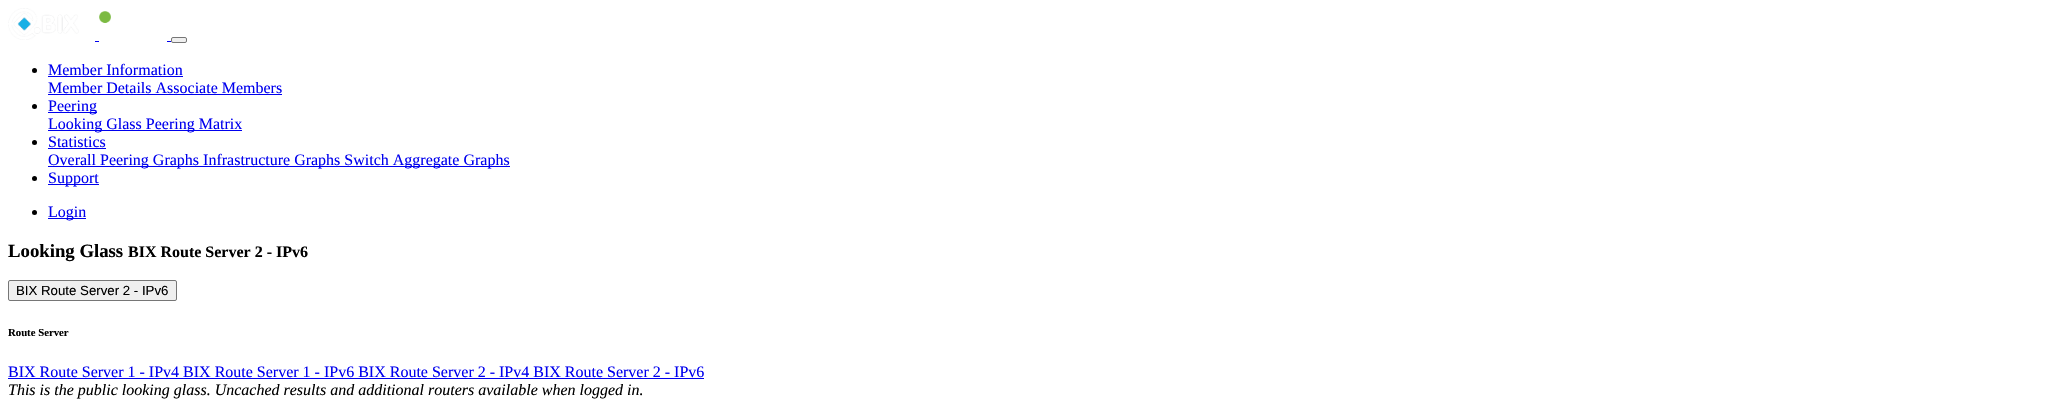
#include "include/core/SkBlurTypes.h"
#include "include/core/SkCanvas.h"
#include "include/core/SkData.h"
#include "include/core/SkFont.h"
#include "include/core/SkFontMgr.h"
#include "include/core/SkImage.h"
#include "include/core/SkMaskFilter.h"
#include "include/core/SkPaint.h"
#include "include/core/SkPathBuilder.h"
#include "include/core/SkTextBlob.h"
#include "include/effects/SkDashPathEffect.h"
#include "include/effects/SkGradientShader.h"
#include "include/utils/SkParsePath.h"

extern sk_sp<SkFontMgr> fontMgr;

void draw(SkCanvas* canvas) {
    SkPaint p;
    p.setAntiAlias(true);
    auto font = [&](const char* family, int weight, float size, bool italic = false) {
        SkFontStyle style(weight, SkFontStyle::kNormal_Width,
            italic ? SkFontStyle::kItalic_Slant : SkFontStyle::kUpright_Slant);
        SkFont result(fontMgr->matchFamilyStyle(family, style), size);
        result.setSubpixel(true);
        return result;
    };
    auto drawPhoto = [&](const char* path, float l, float t, float r, float b) {
        auto image = SkImages::DeferredFromEncodedData(SkData::MakeFromFileName(path));
        canvas->drawImageRect(image, SkRect::MakeLTRB(l, t, r, b), SkSamplingOptions());
    };
    canvas->clear(0xFFFFFFFF);
    drawPhoto("media/1.png", 8, 8, 79, 40);
    drawPhoto("media/2.png", 99, 11, 111, 23);
    p.setColor(0xFF0000EE);
    canvas->drawRect(SkRect::MakeLTRB(95, 41, 99, 42), p);
    canvas->drawRect(SkRect::MakeLTRB(167, 41, 171, 42), p);
    p.setColor(0xFFEFEFEF);
    canvas->drawRoundRect(SkRect::MakeLTRB(171.5f, 37.5f, 186.5f, 42.5f), 1.5f, 1.5f, p);
    p.setStyle(SkPaint::kStroke_Style);
    p.setStrokeWidth(1);
    p.setColor(0xFF767676);
    canvas->drawRoundRect(SkRect::MakeLTRB(171.5f, 37.5f, 186.5f, 42.5f), 1.5f, 1.5f, p);
    p.setStyle(SkPaint::kFill_Style);
    p.setColor(0xFF000000);
    canvas->drawCircle(34.5f, 70.5f, 2.5f, p);
    auto font1 = font("Liberation Serif", 400, 16);
    p.setColor(0xFF0000EE);
    canvas->drawString("Member Information", 48, 75, font1, p);
    canvas->drawRect(SkRect::MakeLTRB(48, 76, 183, 77), p);
    canvas->drawString("Member Details Associate Members", 48, 93, font1, p);
    canvas->drawRect(SkRect::MakeLTRB(48, 94, 282, 95), p);
    p.setColor(0xFF000000);
    canvas->drawCircle(34.5f, 106.5f, 2.5f, p);
    p.setColor(0xFF0000EE);
    canvas->drawRect(SkRect::MakeLTRB(48, 112, 97, 113), p);
    canvas->drawString("Peering", 48, 111, font1, p);
    canvas->drawRect(SkRect::MakeLTRB(48, 130, 242, 131), p);
    canvas->drawString("Looking Glass Peering Matrix", 48, 129, font1, p);
    p.setColor(0xFF000000);
    canvas->drawCircle(34.5f, 142.5f, 2.5f, p);
    p.setColor(0xFF0000EE);
    canvas->drawString("Statistics", 48, 147, font1, p);
    canvas->drawRect(SkRect::MakeLTRB(48, 148, 106, 149), p);
    canvas->drawRect(SkRect::MakeLTRB(48, 166, 510, 167), p);
    canvas->drawString("Overall Peering Graphs Infrastructure Graphs Switch Aggregate Graphs", 48, 165, font1, p);
    p.setColor(0xFF000000);
    canvas->drawCircle(34.5f, 178.5f, 2.5f, p);
    p.setColor(0xFF0000EE);
    canvas->drawRect(SkRect::MakeLTRB(48, 184, 99, 185), p);
    canvas->drawString("Support", 48, 183, font1, p);
    p.setColor(0xFF000000);
    canvas->drawCircle(34.5f, 212.5f, 2.5f, p);
    p.setColor(0xFF0000EE);
    canvas->drawRect(SkRect::MakeLTRB(48, 218, 86, 219), p);
    canvas->drawString("Login", 48, 217, font1, p);
    auto font2 = font("Liberation Serif", 700, 18.75f);
    p.setColor(0xFF000000);
    canvas->drawString("Looking Glass", 8, 257, font2, p);
    auto font3 = font("Liberation Serif", 700, 16);
    canvas->drawString("BIX Route Server 2 - IPv6", 128, 257, font3, p);
    p.setColor(0xFFEFEFEF);
    canvas->drawRoundRect(SkRect::MakeLTRB(8.5f, 280.5f, 176.5f, 300.5f), 1.5f, 1.5f, p);
    p.setStyle(SkPaint::kStroke_Style);
    p.setColor(0xFF767676);
    canvas->drawRoundRect(SkRect::MakeLTRB(8.5f, 280.5f, 176.5f, 300.5f), 1.5f, 1.5f, p);
    auto font4 = font("Liberation Sans", 400, 13.25f);
    p.setStyle(SkPaint::kFill_Style);
    p.setColor(0xFF000000);
    canvas->drawString("BIX Route Server 2 - IPv6", 16, 295, font4, p);
    auto font5 = font("Liberation Serif", 700, 10.75f);
    canvas->drawString("Route Server", 8, 336, font5, p);
    p.setColor(0xFF0000EE);
    canvas->drawString("BIX Route Server 1 - IPv4 BIX Route Server 1 - IPv6 BIX Route Server 2 - IPv4 BIX Route Server 2 - IPv6", 8, 377, font1, p);
    canvas->drawRect(SkRect::MakeLTRB(8, 378, 704, 379), p);
    auto font6 = font("Liberation Serif", 400, 16, true);
    p.setColor(0xFF000000);
    canvas->drawString("This is the public looking glass. Uncached results and additional routers available when logged in.", 8, 395, font6, p);
}
